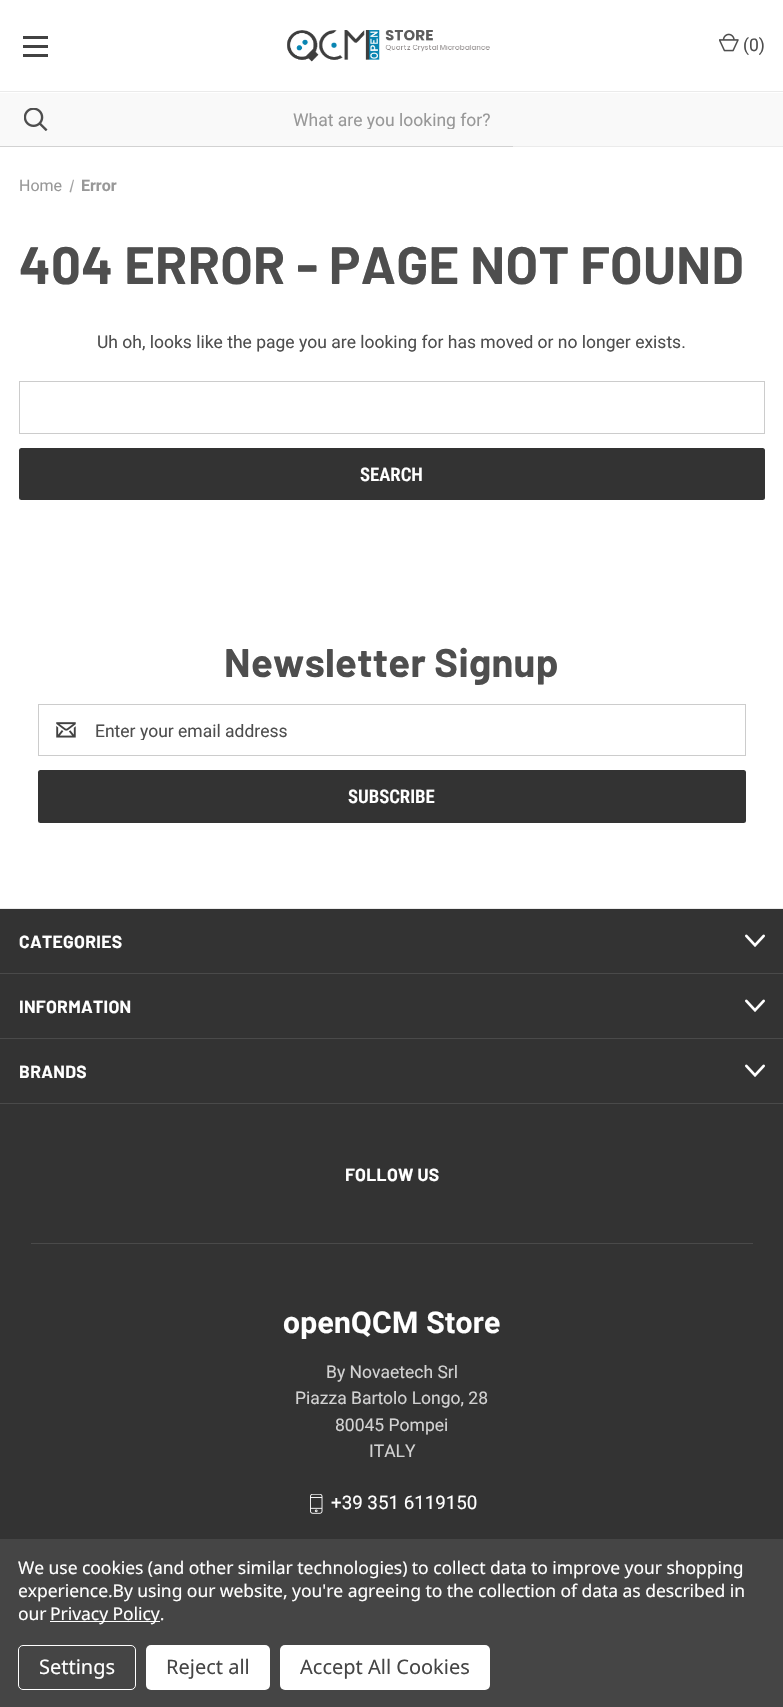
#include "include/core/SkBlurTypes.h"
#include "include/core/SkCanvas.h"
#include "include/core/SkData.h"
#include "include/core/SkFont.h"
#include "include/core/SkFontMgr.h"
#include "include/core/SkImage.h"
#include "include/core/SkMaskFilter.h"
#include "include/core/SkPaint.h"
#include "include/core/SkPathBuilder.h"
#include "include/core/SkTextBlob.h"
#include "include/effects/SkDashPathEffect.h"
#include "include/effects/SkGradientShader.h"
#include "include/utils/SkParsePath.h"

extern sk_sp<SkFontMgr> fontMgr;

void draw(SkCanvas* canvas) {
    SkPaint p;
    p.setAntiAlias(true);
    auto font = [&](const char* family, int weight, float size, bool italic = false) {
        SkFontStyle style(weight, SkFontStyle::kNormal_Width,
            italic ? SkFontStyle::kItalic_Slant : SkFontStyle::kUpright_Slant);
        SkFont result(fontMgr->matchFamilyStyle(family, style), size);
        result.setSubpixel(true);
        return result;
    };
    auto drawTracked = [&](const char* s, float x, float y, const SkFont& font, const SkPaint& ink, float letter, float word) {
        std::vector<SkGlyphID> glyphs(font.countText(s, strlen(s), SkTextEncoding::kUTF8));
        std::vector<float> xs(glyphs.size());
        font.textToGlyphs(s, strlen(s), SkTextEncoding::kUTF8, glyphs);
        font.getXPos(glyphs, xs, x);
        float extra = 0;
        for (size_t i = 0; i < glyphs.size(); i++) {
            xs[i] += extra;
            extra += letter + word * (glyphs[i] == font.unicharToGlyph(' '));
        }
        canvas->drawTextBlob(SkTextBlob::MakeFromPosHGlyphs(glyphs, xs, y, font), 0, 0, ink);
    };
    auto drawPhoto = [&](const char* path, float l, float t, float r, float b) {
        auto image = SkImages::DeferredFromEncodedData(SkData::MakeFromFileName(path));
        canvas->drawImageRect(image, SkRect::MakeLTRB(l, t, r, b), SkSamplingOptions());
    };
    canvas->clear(0xFFFFFFFF);
    {
        const struct { float l, t, r, b; SkColor color; } items[] = {
            {513, 146, 783, 147, 0xFFEBEBEB},
            {23, 45, 48, 48, 0xFF424242},
            {23, 36, 48, 39, 0xFF424242},
            {23, 54, 48, 57, 0xFF424242},
        };
        for (auto [l, t, r, b, color] : items) {
            p.setColor(color);
            canvas->drawRect(SkRect::MakeLTRB(l, t, r, b), p);
        }
    }
    drawPhoto("media/1.png", 287, 30, 490, 62);
    drawPhoto("media/2.png", 719, 33, 739, 52);
    auto font1 = font("Roboto", 400, 17.5f);
    p.setColor(0xFF4E4E4E);
    canvas->drawString("(0)", 743, 51, font1, p);
    p.setColor(0xFFF9F9F9);
    canvas->drawRect(SkRect::MakeLTRB(0, 93, 783, 146), p);
    drawPhoto("media/3.png", 24, 108, 48, 131);
    p.setColor(0xFFEBEBEB);
    canvas->drawRect(SkRect::MakeLTRB(0, 91, 783, 92), p);
    canvas->save();
    canvas->clipRect(SkRect::MakeLTRB(38, 109, 746, 129));
    p.setColor(0xFF989898);
    canvas->drawString("What are you looking for?", 293, 126, font1, p);
    canvas->restore();
    p.setColor(0xFFD2D2D2);
    canvas->drawRect(SkRect::MakeLTRB(0, 146, 513, 147), p);
    auto font2 = font("Roboto", 400, 16);
    p.setColor(0xFF989898);
    canvas->drawString("Home", 19, 191, font2, p);
    p.setColor(0xFFA3A3A3);
    canvas->drawPath(SkPathBuilder().moveTo(73, 179.5f).lineTo(74, 180).lineTo(71, 192.5f).lineTo(69.5f, 192).close().detach(), p);
    auto font3 = font("Roboto", 700, 16);
    p.setColor(0xFF989898);
    canvas->drawString("Error", 81, 191, font3, p);
    auto font4 = font("Barlow", 700, 52.5f);
    p.setColor(0xFF4E4E4E);
    drawTracked("404 ERROR - PAGE NOT FOUND", 19, 284, font4, p, 0.3f, 0);
    canvas->drawString("Uh oh, looks like the page you are looking for has moved or no longer exists.", 97, 348, font1, p);
    p.setStyle(SkPaint::kStroke_Style);
    p.setStrokeWidth(1);
    p.setColor(0xFFCCCCCC);
    canvas->drawRect(SkRect::MakeLTRB(19.5f, 381.5f, 764.5f, 433.5f), p);
    p.setStyle(SkPaint::kFill_Style);
    p.setColor(0xFF333333);
    canvas->drawRoundRect(SkRect::MakeLTRB(19, 448, 765, 500), 2.5f, 2.5f, p);
    auto font5 = font("Roboto Condensed", 600, 18.75f);
    p.setColor(0xFFFFFFFF);
    canvas->drawString("SEARCH", 360, 481, font5, p);
    auto font6 = font("Barlow", 700, 40);
    p.setColor(0xFF4E4E4E);
    drawTracked("Newsletter Signup", 224, 677, font6, p, 0.3f, 0);
    p.setStyle(SkPaint::kStroke_Style);
    p.setColor(0xFFCCCCCC);
    canvas->drawRect(SkRect::MakeLTRB(38.5f, 704.5f, 745.5f, 755.5f), p);
    drawPhoto("media/4.png", 56, 722, 76, 738);
    canvas->save();
    canvas->clipRect(SkRect::MakeLTRB(95, 720, 728, 740));
    p.setStyle(SkPaint::kFill_Style);
    p.setColor(0xFF4E4E4E);
    canvas->drawString("Enter your email address", 95, 737, font1, p);
    canvas->restore();
    p.setColor(0xFF333333);
    canvas->drawRoundRect(SkRect::MakeLTRB(38, 770, 746, 823), 2.5f, 2.5f, p);
    p.setColor(0xFFFFFFFF);
    canvas->drawString("SUBSCRIBE", 348, 803, font5, p);
    {
        const struct { float l, t, r, b; SkColor color; } items[] = {
            {0, 909, 783, 1539, 0xFF333333},
            {0, 908, 783, 909, 0xFFEBEBEB},
            {0, 973, 783, 974, 0xFF4A4A4A},
        };
        for (auto [l, t, r, b, color] : items) {
            p.setColor(color);
            canvas->drawRect(SkRect::MakeLTRB(l, t, r, b), p);
        }
    }
    auto font7 = font("Barlow", 700, 17.5f);
    p.setColor(0xFFFFFFFF);
    drawTracked("CATEGORIES", 19, 948, font7, p, 0.3f, 0);
    drawPhoto("media/5.png", 745, 934, 765, 947);
    p.setColor(0xFF4A4A4A);
    canvas->drawRect(SkRect::MakeLTRB(0, 1038, 783, 1039), p);
    p.setColor(0xFFFFFFFF);
    drawTracked("INFORMATION", 19, 1013, font7, p, 0.3f, 0);
    drawPhoto("media/5.png", 745, 999, 765, 1012);
    p.setColor(0xFF4A4A4A);
    canvas->drawRect(SkRect::MakeLTRB(0, 1103, 783, 1104), p);
    p.setColor(0xFFFFFFFF);
    drawTracked("BRANDS", 19, 1078, font7, p, 0.3f, 0);
    drawPhoto("media/5.png", 745, 1064, 765, 1077);
    p.setColor(0xFF4A4A4A);
    canvas->drawRect(SkRect::MakeLTRB(31, 1243, 753, 1244), p);
    p.setColor(0xFFFFFFFF);
    drawTracked("FOLLOW US", 345, 1181, font7, p, 0.3f, 0);
    auto font8 = font("Roboto", 700, 30);
    drawTracked("openQCM Store", 283, 1333, font8, p, 0.3f, 0);
    p.setColor(0xFFD2D2D2);
    {
        const struct { const char* s; float x, y; } items[] = {
            {"By Novaetech Srl", 326, 1378},
            {"Piazza Bartolo Longo, 28", 295, 1404},
            {"80045 Pompei", 335, 1431},
            {"ITALY", 369, 1457},
        };
        for (auto [s, x, y] : items) {
            canvas->drawString(s, x, y, font1, p);
        }
    }
    drawPhoto("media/6.png", 310, 1494, 323, 1514);
    auto font9 = font("Roboto", 400, 18.75f);
    p.setColor(0xFFFFFFFF);
    canvas->drawString("+39 351 6119150", 331, 1509, font9, p);
    p.setColor(0xFF454545);
    canvas->drawRect(SkRect::MakeLTRB(0, 1539, 783, 1707), p);
    auto font10 = font("Noto Sans", 400, 17.5f);
    p.setColor(0xFFFFFFFF);
    {
        const struct { const char* s; float x, y; } items[] = {
            {"We use cookies (and other similar technologies) to collect data to improve your shopping", 18, 1574},
            {"experience.By using our website, you're agreeing to the collection of data as described in", 18, 1597},
            {"our", 18, 1620},
        };
        for (auto [s, x, y] : items) {
            drawTracked(s, x, y, font10, p, -0.05f, 0);
        }
    }
    canvas->drawRect(SkRect::MakeLTRB(50, 1621, 160, 1622), p);
    drawTracked("Privacy Policy.", 50, 1620, font10, p, -0.05f, 0);
    p.setStyle(SkPaint::kStroke_Style);
    canvas->drawRoundRect(SkRect::MakeLTRB(18.5f, 1645.5f, 135.5f, 1689.5f), 4.5f, 4.5f, p);
    auto font11 = font("Noto Sans", 400, 20);
    p.setStyle(SkPaint::kFill_Style);
    canvas->drawString("Settings", 39, 1674, font11, p);
    canvas->drawRoundRect(SkRect::MakeLTRB(146, 1645, 270, 1690), 5, 5, p);
    p.setColor(0xFF454545);
    canvas->drawString("Reject all", 166, 1674, font11, p);
    p.setColor(0xFFFFFFFF);
    canvas->drawRoundRect(SkRect::MakeLTRB(280, 1645, 490, 1690), 5, 5, p);
    p.setColor(0xFF454545);
    canvas->drawString("Accept All Cookies", 300, 1674, font11, p);
}
